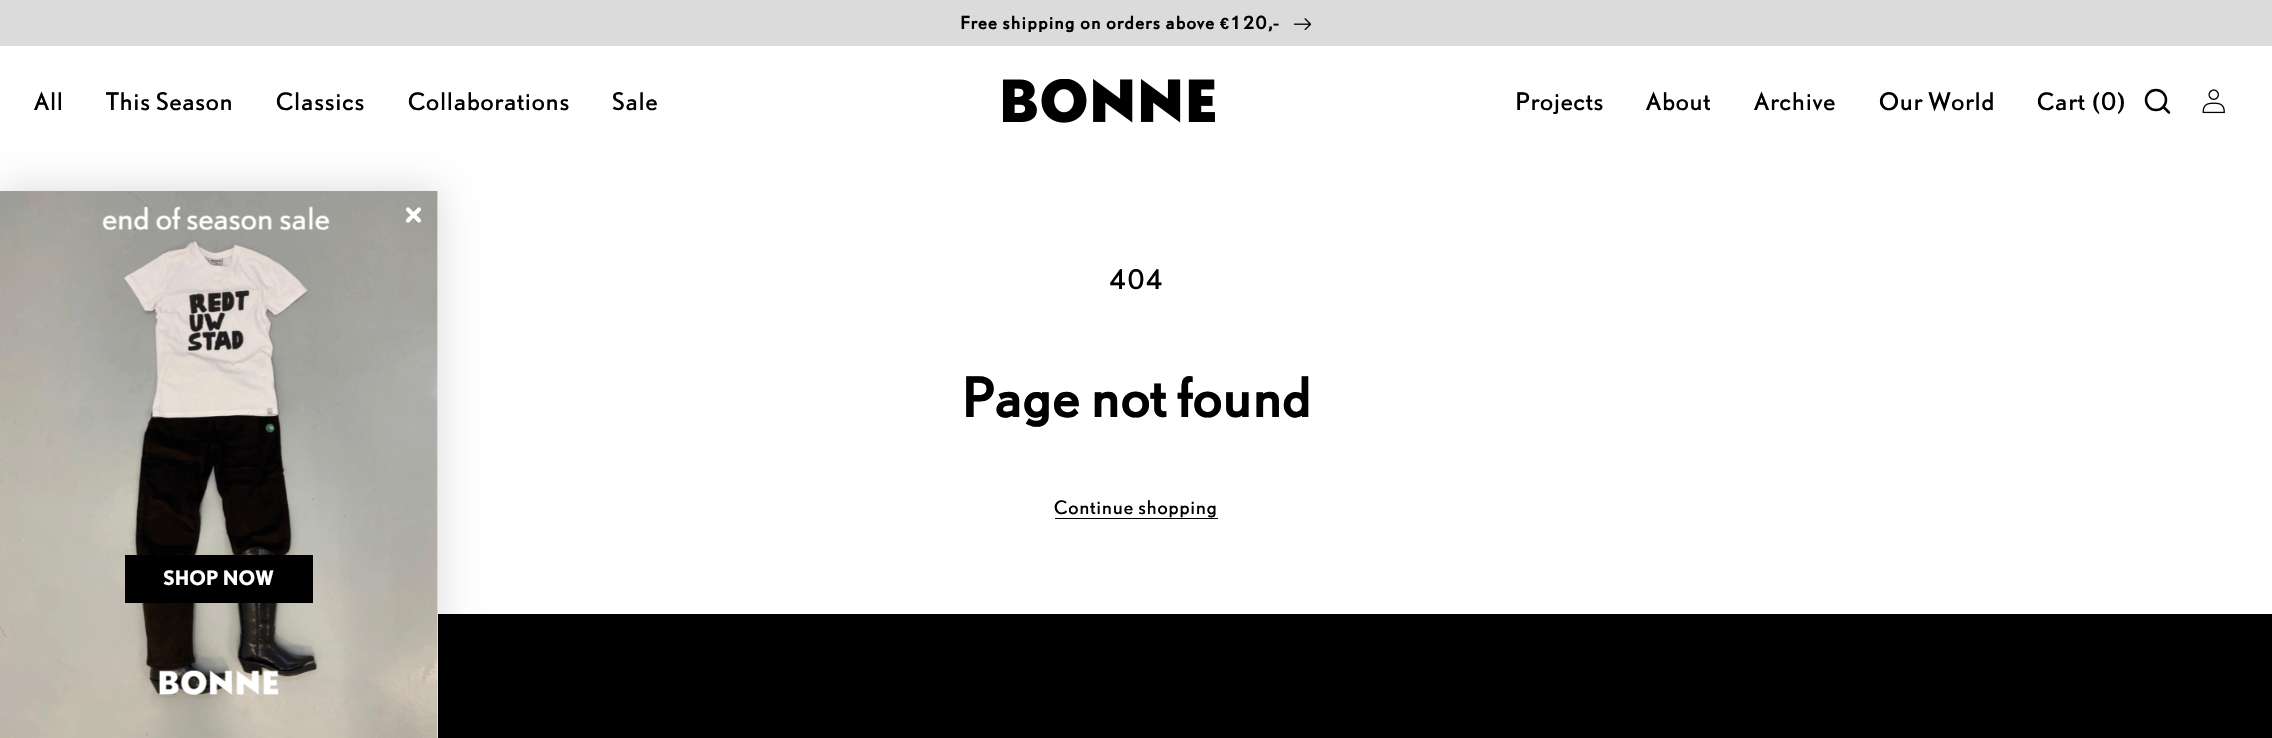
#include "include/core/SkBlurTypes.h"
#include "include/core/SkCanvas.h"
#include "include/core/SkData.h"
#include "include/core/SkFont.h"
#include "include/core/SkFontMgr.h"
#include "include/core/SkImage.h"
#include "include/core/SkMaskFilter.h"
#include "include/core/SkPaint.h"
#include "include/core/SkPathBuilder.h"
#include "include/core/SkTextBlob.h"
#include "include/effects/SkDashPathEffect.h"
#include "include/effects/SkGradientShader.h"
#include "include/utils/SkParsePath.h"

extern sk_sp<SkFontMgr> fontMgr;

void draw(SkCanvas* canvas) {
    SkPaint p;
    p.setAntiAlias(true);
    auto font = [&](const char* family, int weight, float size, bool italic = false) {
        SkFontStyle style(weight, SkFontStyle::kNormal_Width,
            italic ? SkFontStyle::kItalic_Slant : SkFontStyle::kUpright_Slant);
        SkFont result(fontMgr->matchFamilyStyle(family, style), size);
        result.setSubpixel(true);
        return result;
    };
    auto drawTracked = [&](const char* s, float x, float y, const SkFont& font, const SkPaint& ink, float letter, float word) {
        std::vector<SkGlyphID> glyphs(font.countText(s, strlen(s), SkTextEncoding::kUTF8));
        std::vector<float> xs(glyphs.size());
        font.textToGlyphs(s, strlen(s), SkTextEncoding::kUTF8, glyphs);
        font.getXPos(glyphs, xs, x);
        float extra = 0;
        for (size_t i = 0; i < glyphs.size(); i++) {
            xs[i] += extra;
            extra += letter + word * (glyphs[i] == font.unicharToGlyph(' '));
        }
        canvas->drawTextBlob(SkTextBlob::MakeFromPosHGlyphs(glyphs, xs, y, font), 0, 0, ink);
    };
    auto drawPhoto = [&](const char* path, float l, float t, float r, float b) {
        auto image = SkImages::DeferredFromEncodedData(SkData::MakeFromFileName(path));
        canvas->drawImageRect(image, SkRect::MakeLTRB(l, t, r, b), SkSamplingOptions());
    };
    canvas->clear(0xFFFFFFFF);
    p.setColor(0xFFDBDBDB);
    canvas->drawRect(SkRect::MakeLTRB(0, 0, 2272, 46), p);
    auto font1 = font("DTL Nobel", 700, 16.25f);
    p.setColor(0xFF000000);
    drawTracked("Free shipping on orders above", 960, 29, font1, p, 1.25f, 0);
    auto font2 = font("Liberation Sans", 700, 16.25f);
    drawTracked("€", 1220, 29, font2, p, 1.25f, 0);
    drawTracked("120,-", 1230, 29, font1, p, 1.25f, 0);
    drawPhoto("media/1.png", 1294, 18, 1312, 30);
    auto font3 = font("DTL Nobel", 400, 22.5f);
    {
        const struct { const char* s; float x, y; } items[] = {
            {"All", 34, 110},
            {"This Season", 106, 110},
            {"Classics", 276, 110},
            {"Collaborations", 408, 110},
            {"Sale", 612, 110},
        };
        for (auto [s, x, y] : items) {
            drawTracked(s, x, y, font3, p, 0.75f, 0);
        }
    }
    drawPhoto("media/2.png", 1003, 79, 1215, 123);
    {
        const struct { const char* s; float x, y; } items[] = {
            {"Projects", 1515, 110},
            {"About", 1646, 110},
            {"Archive", 1754, 110},
            {"Our World", 1879, 110},
            {"Cart", 2037, 110},
            {"(0)", 2092, 110},
        };
        for (auto [s, x, y] : items) {
            drawTracked(s, x, y, font3, p, 0.75f, 0);
        }
    }
    p.setStyle(SkPaint::kStroke_Style);
    p.setStrokeWidth(2.5f);
    canvas->drawCircle(2156, 100, 10, p);
    p.setStrokeCap(SkPaint::kRound_Cap);
    p.setStrokeJoin(SkPaint::kRound_Join);
    canvas->drawPath(SkPathBuilder().moveTo(2169, 112.5f).lineTo(2163.5f, 107).detach(), p);
    drawPhoto("media/3.png", 2202, 89, 2225, 114);
    auto font4 = font("DTL Nobel", 400, 25);
    p.setStyle(SkPaint::kFill_Style);
    drawTracked("404", 1109, 289, font4, p, 0.75f, 0);
    auto font5 = font("DTL Nobel", 700, 50);
    drawTracked("Page not found", 961, 417, font5, p, 0.75f, 0);
    auto font6 = font("DTL Nobel", 400, 17.5f);
    drawTracked("Continue shopping", 1054, 514, font6, p, 0.75f, 0);
    canvas->drawRect(SkRect::MakeLTRB(1055, 518, 1218, 519), p);
    canvas->drawRect(SkRect::MakeLTRB(438, 614, 2272, 738), p);
    p.setColor(0x26000000);
    p.setMaskFilter(SkMaskFilter::MakeBlur(kNormal_SkBlurStyle, 19));
    canvas->drawRect(SkRect::MakeLTRB(0, 191, 438, 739), p);
    p.setMaskFilter(nullptr);
    p.setColor(0xFFFFFFFF);
    canvas->drawRect(SkRect::MakeLTRB(437, 191, 438, 738), p);
    drawPhoto("media/4.png", 0, 191, 438, 738);
    p.setStyle(SkPaint::kStroke_Style);
    p.setStrokeWidth(4.1f);
    canvas->drawPath(SkPathBuilder().moveTo(408, 209.5f).lineTo(419, 220.5f).moveTo(408, 220.5f).lineTo(419, 209.5f).close().detach(), p);
    p.setStyle(SkPaint::kFill_Style);
    p.setColor(0xFF000000);
    canvas->drawRect(SkRect::MakeLTRB(125, 555, 313, 603), p);
    auto font7 = font("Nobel", 700, 20);
    p.setColor(0xFFFFFFFF);
    canvas->drawString("SHOP NOW", 163, 585, font7, p);
}
